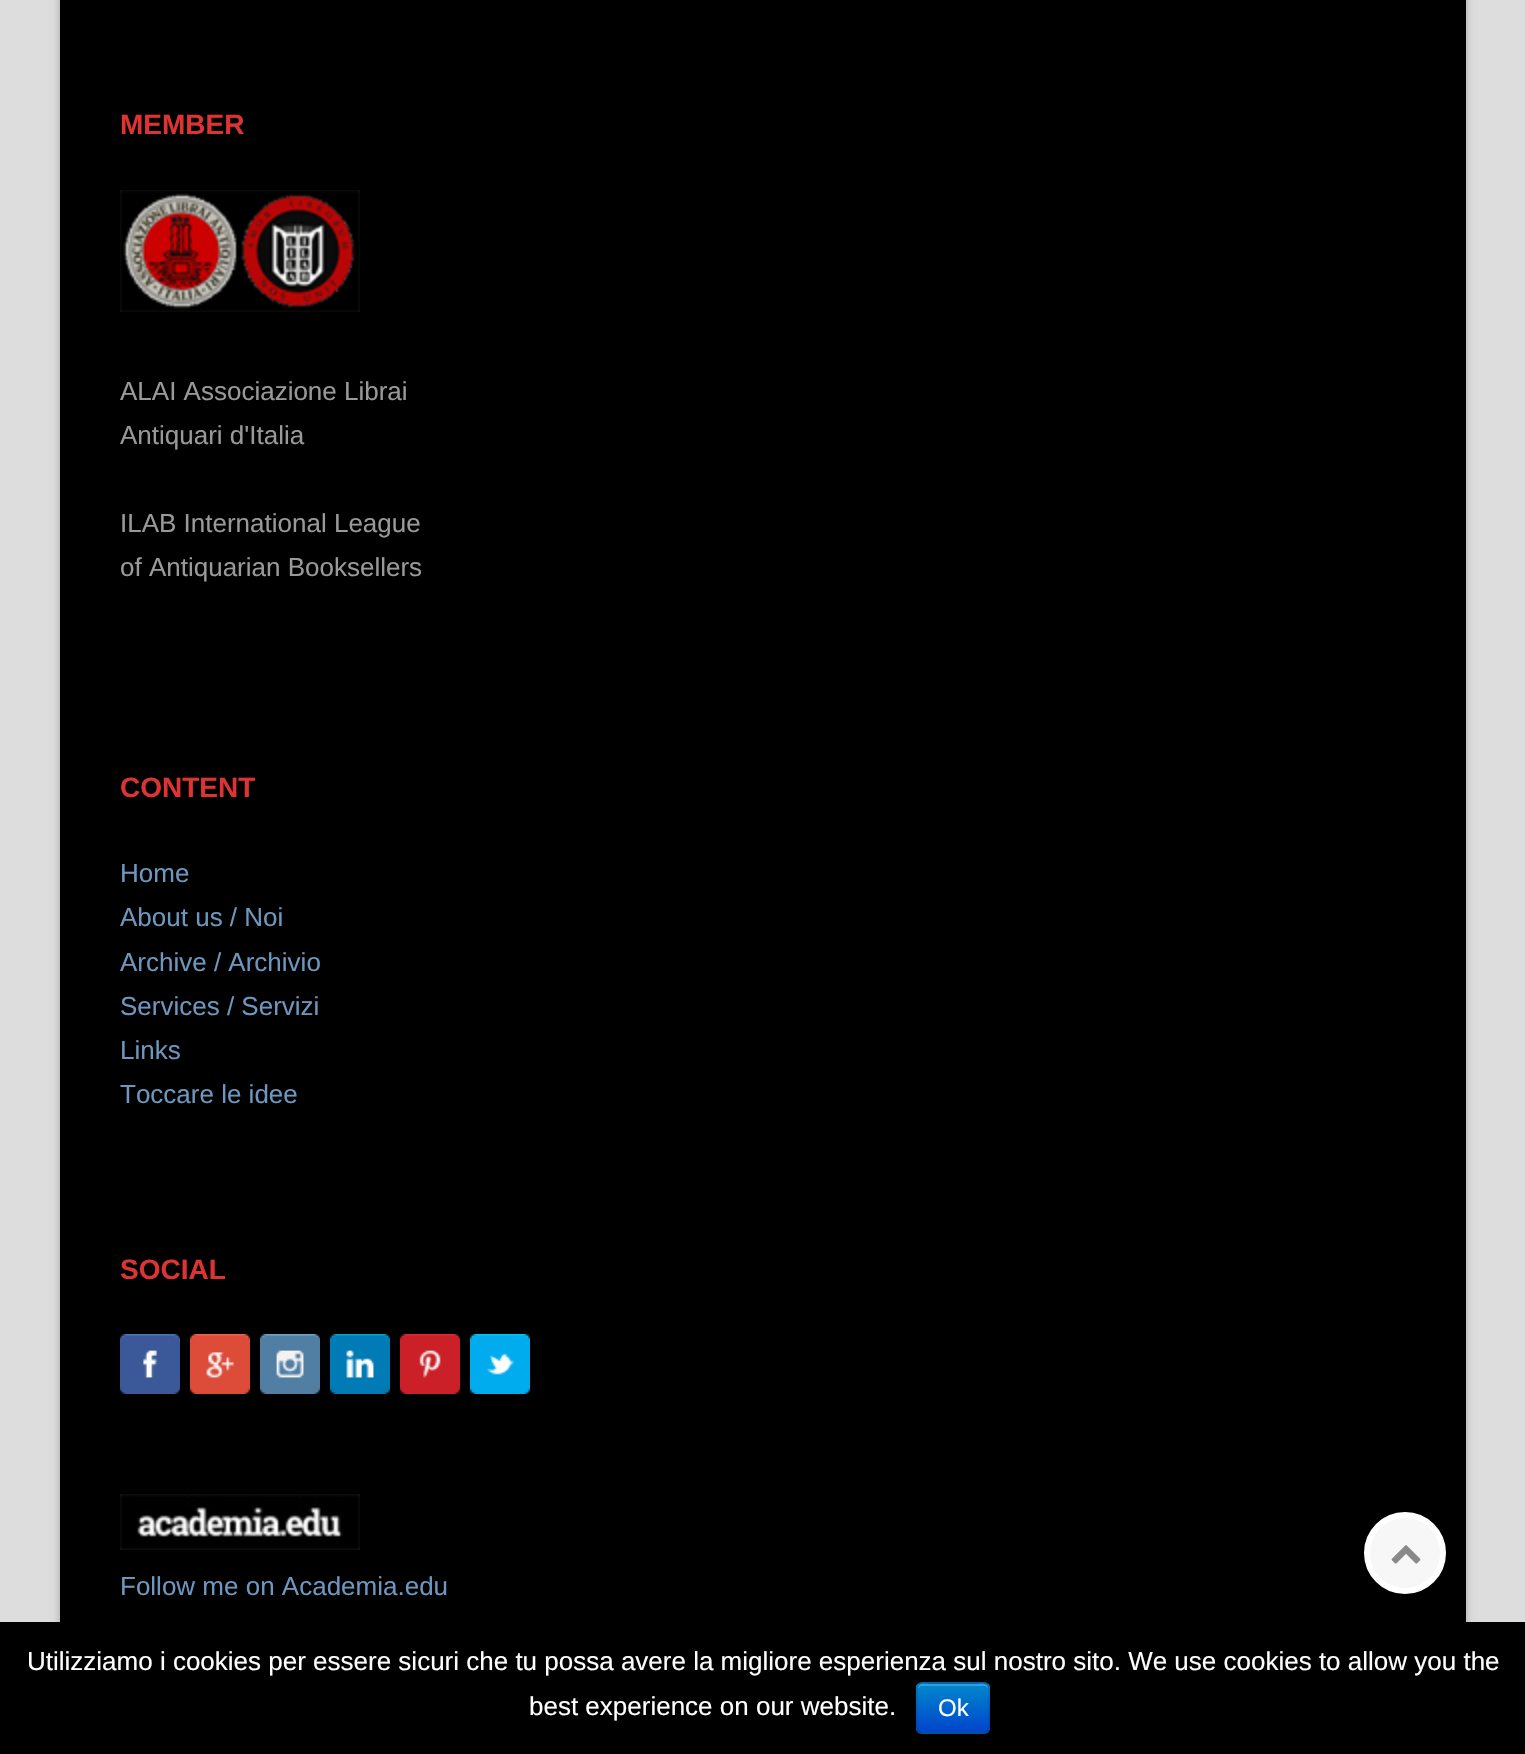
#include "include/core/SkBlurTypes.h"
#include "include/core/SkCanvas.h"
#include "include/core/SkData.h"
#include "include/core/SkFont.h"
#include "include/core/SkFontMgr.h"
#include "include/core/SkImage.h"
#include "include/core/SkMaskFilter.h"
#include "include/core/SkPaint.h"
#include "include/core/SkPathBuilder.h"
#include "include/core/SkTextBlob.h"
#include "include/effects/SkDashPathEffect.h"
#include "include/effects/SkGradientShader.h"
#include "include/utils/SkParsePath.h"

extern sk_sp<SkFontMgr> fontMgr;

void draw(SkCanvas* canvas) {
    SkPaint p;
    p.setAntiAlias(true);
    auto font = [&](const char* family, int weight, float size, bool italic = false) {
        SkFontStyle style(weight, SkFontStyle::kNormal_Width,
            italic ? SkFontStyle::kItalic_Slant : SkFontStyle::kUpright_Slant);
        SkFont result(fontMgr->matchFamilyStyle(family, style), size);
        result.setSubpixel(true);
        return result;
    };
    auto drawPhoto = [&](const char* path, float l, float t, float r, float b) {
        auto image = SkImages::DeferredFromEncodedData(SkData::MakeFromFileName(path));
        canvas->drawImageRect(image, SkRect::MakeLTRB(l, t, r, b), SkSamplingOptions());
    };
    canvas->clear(0xFFDDDDDD);
    p.setColor(0x40000000);
    p.setMaskFilter(SkMaskFilter::MakeBlur(kNormal_SkBlurStyle, 4));
    canvas->drawRect(SkRect::MakeLTRB(60, -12, 1466, 1742), p);
    p.setMaskFilter(nullptr);
    p.setColor(0xFF000000);
    canvas->drawRect(SkRect::MakeLTRB(60, 0, 1466, 1622), p);
    auto font1 = font("Liberation Sans", 700, 28);
    p.setColor(0xFFDD3333);
    canvas->drawString("MEMBER", 120, 134, font1, p);
    drawPhoto("media/1.png", 120, 190, 360, 312);
    auto font2 = font("Liberation Sans", 400, 26);
    p.setColor(0xFF999999);
    {
        const struct { const char* s; float x, y; } items[] = {
            {"ALAI Associazione Librai", 120, 400},
            {"Antiquari d'Italia", 120, 444},
            {"ILAB International League", 120, 532},
            {"of Antiquarian Booksellers", 120, 576},
        };
        for (auto [s, x, y] : items) {
            canvas->drawString(s, x, y, font2, p);
        }
    }
    p.setColor(0xFFDD3333);
    canvas->drawString("CONTENT", 120, 797, font1, p);
    p.setColor(0xFF6D97BF);
    {
        const struct { const char* s; float x, y; } items[] = {
            {"Home", 120, 882},
            {"About us / Noi", 120, 926},
            {"Archive / Archivio", 120, 971},
            {"Services / Servizi", 120, 1015},
            {"Links", 120, 1059},
            {"Toccare le idee", 120, 1103},
        };
        for (auto [s, x, y] : items) {
            canvas->drawString(s, x, y, font2, p);
        }
    }
    p.setColor(0xFFDD3333);
    canvas->drawString("SOCIAL", 120, 1279, font1, p);
    drawPhoto("media/2.png", 120, 1334, 180, 1394);
    drawPhoto("media/3.png", 190, 1334, 250, 1394);
    drawPhoto("media/4.png", 260, 1334, 320, 1394);
    drawPhoto("media/5.png", 330, 1334, 390, 1394);
    drawPhoto("media/6.png", 400, 1334, 460, 1394);
    drawPhoto("media/7.png", 470, 1334, 530, 1394);
    drawPhoto("media/8.png", 120, 1494, 360, 1550);
    p.setColor(0xFF6D97BF);
    canvas->drawString("Follow me on Academia.edu", 120, 1595, font2, p);
    p.setColor(0xFFF7F7F7);
    canvas->drawCircle(1405, 1553, 38, p);
    p.setStyle(SkPaint::kStroke_Style);
    p.setStrokeWidth(6);
    p.setColor(0xFFFFFFFF);
    canvas->drawCircle(1405, 1553, 38, p);
    drawPhoto("media/9.png", 1391, 1545, 1421, 1564);
    p.setStyle(SkPaint::kFill_Style);
    p.setColor(0xFF000000);
    canvas->drawRect(SkRect::MakeLTRB(0, 1622, 1525, 1754), p);
    p.setColor(0xFFFFFFFF);
    canvas->drawString("Utilizziamo i cookies per essere sicuri che tu possa avere la migliore esperienza sul nostro sito. We use cookies to allow you the", 27, 1670, font2, p);
    canvas->drawString("best experience on our website.", 529, 1715, font2, p);
    p.setColor(0xFF006DCC);
    canvas->drawRoundRect(SkRect::MakeLTRB(916, 1682, 990, 1734), 6, 6, p);
    canvas->save();
    canvas->clipPath(SkPathBuilder().moveTo(922, 1682).lineTo(984, 1682).cubicTo(987.5f, 1682, 990, 1684.5f, 990, 1688).lineTo(990, 1728).cubicTo(990, 1731.5f, 987.5f, 1734, 984, 1734).lineTo(922, 1734).cubicTo(918.5f, 1734, 916, 1731.5f, 916, 1728).lineTo(916, 1688).cubicTo(916, 1684.5f, 918.5f, 1682, 922, 1682).close().detach(), true);
    {
        const SkColor colors[] = {0xFF0088CC, 0xFF0044CC};
        const float stops[] = {0, 1};
        const SkPoint ends[] = {{953, 1684}, {953, 1732}};
        p.setShader(SkGradientShader::MakeLinear(ends, colors, stops, 2, SkTileMode::kClamp));
        p.setAlpha(255);
    }
    canvas->drawRect(SkRect::MakeLTRB(916, 1684, 990, 1732), p);
    canvas->restore();
    p.setShader(nullptr);
    p.setColor(0x33FFFFFF);
    canvas->drawPath(SkPathBuilder().moveTo(922, 1686).lineTo(984, 1686).cubicTo(986, 1686, 988, 1688, 988, 1690).cubicTo(988, 1681, 981, 1684, 974, 1684).lineTo(932, 1684).cubicTo(925, 1684, 918, 1681, 918, 1690).cubicTo(918, 1688, 920, 1686, 922, 1686).close().detach(), p);
    p.setStyle(SkPaint::kStroke_Style);
    p.setStrokeWidth(2);
    p.setColor(0x40000000);
    canvas->drawPath(SkPathBuilder().moveTo(987.5f, 1731.5f).cubicTo(986.5f, 1732.5f, 985.5f, 1733, 984, 1733).lineTo(922, 1733).cubicTo(920.5f, 1733, 919.5f, 1732.5f, 918.5f, 1731.5f).detach(), p);
    p.setColor(0x1A000000);
    canvas->drawPath(SkPathBuilder().moveTo(918.5f, 1731.5f).cubicTo(917.5f, 1730.5f, 917, 1729.5f, 917, 1728).lineTo(917, 1688).cubicTo(917, 1686.5f, 917.5f, 1685.5f, 918.5f, 1684.5f).cubicTo(919.5f, 1683.5f, 920.5f, 1683, 922, 1683).lineTo(984, 1683).cubicTo(985.5f, 1683, 986.5f, 1683.5f, 987.5f, 1684.5f).cubicTo(988.5f, 1685.5f, 989, 1686.5f, 989, 1688).lineTo(989, 1728).cubicTo(989, 1729.5f, 988.5f, 1730.5f, 987.5f, 1731.5f).detach(), p);
    auto font3 = font("Liberation Sans", 400, 24);
    p.setStyle(SkPaint::kFill_Style);
    p.setColor(0xFFFFFFFF);
    canvas->drawString("Ok", 938, 1716, font3, p);
}
